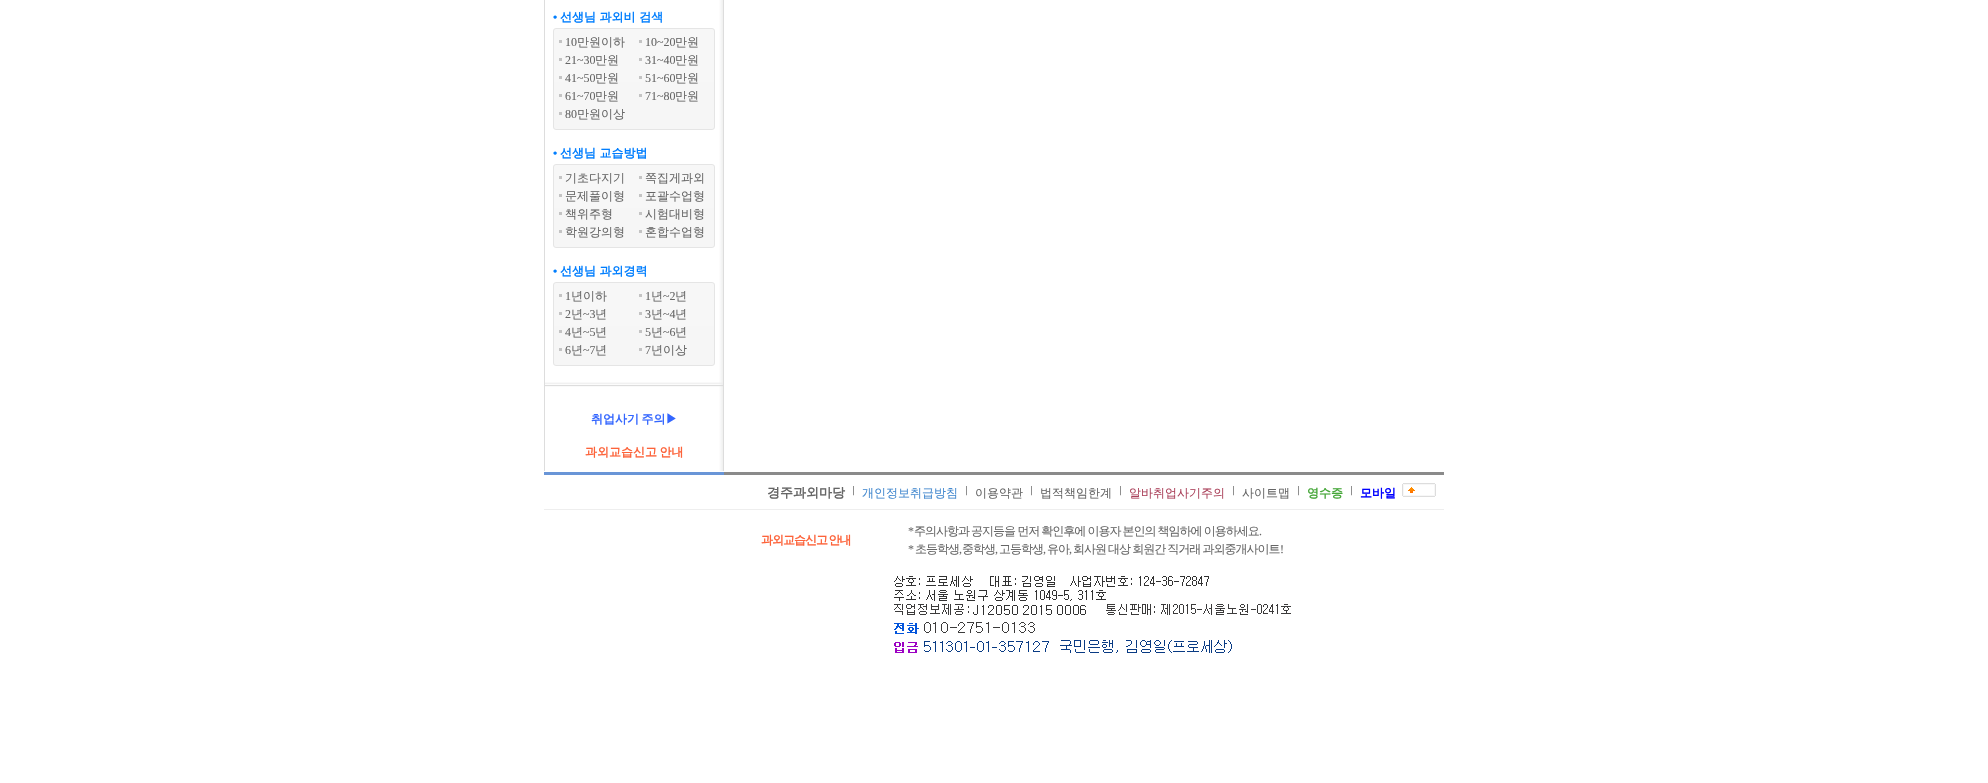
#include "include/core/SkBlurTypes.h"
#include "include/core/SkCanvas.h"
#include "include/core/SkData.h"
#include "include/core/SkFont.h"
#include "include/core/SkFontMgr.h"
#include "include/core/SkImage.h"
#include "include/core/SkMaskFilter.h"
#include "include/core/SkPaint.h"
#include "include/core/SkPathBuilder.h"
#include "include/core/SkTextBlob.h"
#include "include/effects/SkDashPathEffect.h"
#include "include/effects/SkGradientShader.h"
#include "include/utils/SkParsePath.h"

extern sk_sp<SkFontMgr> fontMgr;

void draw(SkCanvas* canvas) {
    SkPaint p;
    p.setAntiAlias(true);
    auto font = [&](const char* family, int weight, float size, bool italic = false) {
        SkFontStyle style(weight, SkFontStyle::kNormal_Width,
            italic ? SkFontStyle::kItalic_Slant : SkFontStyle::kUpright_Slant);
        SkFont result(fontMgr->matchFamilyStyle(family, style), size);
        result.setSubpixel(true);
        return result;
    };
    auto drawTracked = [&](const char* s, float x, float y, const SkFont& font, const SkPaint& ink, float letter, float word) {
        std::vector<SkGlyphID> glyphs(font.countText(s, strlen(s), SkTextEncoding::kUTF8));
        std::vector<float> xs(glyphs.size());
        font.textToGlyphs(s, strlen(s), SkTextEncoding::kUTF8, glyphs);
        font.getXPos(glyphs, xs, x);
        float extra = 0;
        for (size_t i = 0; i < glyphs.size(); i++) {
            xs[i] += extra;
            extra += letter + word * (glyphs[i] == font.unicharToGlyph(' '));
        }
        canvas->drawTextBlob(SkTextBlob::MakeFromPosHGlyphs(glyphs, xs, y, font), 0, 0, ink);
    };
    auto drawPhoto = [&](const char* path, float l, float t, float r, float b) {
        auto image = SkImages::DeferredFromEncodedData(SkData::MakeFromFileName(path));
        canvas->drawImageRect(image, SkRect::MakeLTRB(l, t, r, b), SkSamplingOptions());
    };
    canvas->clear(0xFFFFFFFF);
    drawPhoto("media/1.png", 544, 0, 724, 471);
    auto font1 = font("Liberation Serif", 700, 12);
    p.setColor(0xFF017EFE);
    canvas->drawString("•", 553, 21, font1, p);
    auto font2 = font("WenQuanYi Zen Hei", 700, 12);
    canvas->drawString("선생님 과외비 검색", 560, 21, font2, p);
    canvas->save();
    canvas->clipPath(SkPathBuilder().moveTo(556, 28).lineTo(712, 28).cubicTo(713.5f, 28, 715, 29.5f, 715, 31).lineTo(715, 127).cubicTo(715, 128.5f, 713.5f, 130, 712, 130).lineTo(556, 130).cubicTo(554.5f, 130, 553, 128.5f, 553, 127).lineTo(553, 31).cubicTo(553, 29.5f, 554.5f, 28, 556, 28).close().detach(), true);
    {
        const SkColor colors[] = {0xFFF7F7F7, 0xFFF6F6F6};
        const float stops[] = {0.05f, 1};
        const SkPoint ends[] = {{634, 29}, {634, 129}};
        p.setShader(SkGradientShader::MakeLinear(ends, colors, stops, 2, SkTileMode::kClamp));
        p.setAlpha(255);
    }
    canvas->drawRect(SkRect::MakeLTRB(553, 29, 715, 129), p);
    canvas->restore();
    p.setStyle(SkPaint::kStroke_Style);
    p.setStrokeWidth(1);
    p.setShader(nullptr);
    p.setColor(0xFFE5E5E5);
    canvas->drawRoundRect(SkRect::MakeLTRB(553.5f, 28.5f, 714.5f, 129.5f), 2.5f, 2.5f, p);
    p.setStyle(SkPaint::kFill_Style);
    p.setColor(0xFFC4C4C4);
    canvas->drawRect(SkRect::MakeLTRB(559, 40, 562, 43), p);
    auto font3 = font("Liberation Serif", 400, 12);
    p.setColor(0xFF666666);
    canvas->drawString("10", 565, 46, font3, p);
    auto font4 = font("WenQuanYi Zen Hei", 500, 12);
    canvas->drawString("만원이하", 577, 46, font4, p);
    p.setColor(0xFFC4C4C4);
    canvas->drawRect(SkRect::MakeLTRB(639, 40, 642, 43), p);
    p.setColor(0xFF666666);
    canvas->drawString("10~20", 645, 46, font3, p);
    canvas->drawString("만원", 675, 46, font4, p);
    p.setColor(0xFFC4C4C4);
    canvas->drawRect(SkRect::MakeLTRB(559, 58, 562, 61), p);
    p.setColor(0xFF666666);
    canvas->drawString("21~30", 565, 64, font3, p);
    canvas->drawString("만원", 595, 64, font4, p);
    p.setColor(0xFFC4C4C4);
    canvas->drawRect(SkRect::MakeLTRB(639, 58, 642, 61), p);
    p.setColor(0xFF666666);
    canvas->drawString("31~40", 645, 64, font3, p);
    canvas->drawString("만원", 675, 64, font4, p);
    p.setColor(0xFFC4C4C4);
    canvas->drawRect(SkRect::MakeLTRB(559, 76, 562, 79), p);
    p.setColor(0xFF666666);
    canvas->drawString("41~50", 565, 82, font3, p);
    canvas->drawString("만원", 595, 82, font4, p);
    p.setColor(0xFFC4C4C4);
    canvas->drawRect(SkRect::MakeLTRB(639, 76, 642, 79), p);
    p.setColor(0xFF666666);
    canvas->drawString("51~60", 645, 82, font3, p);
    canvas->drawString("만원", 675, 82, font4, p);
    p.setColor(0xFFC4C4C4);
    canvas->drawRect(SkRect::MakeLTRB(559, 94, 562, 97), p);
    p.setColor(0xFF666666);
    canvas->drawString("61~70", 565, 100, font3, p);
    canvas->drawString("만원", 595, 100, font4, p);
    p.setColor(0xFFC4C4C4);
    canvas->drawRect(SkRect::MakeLTRB(639, 94, 642, 97), p);
    p.setColor(0xFF666666);
    canvas->drawString("71~80", 645, 100, font3, p);
    canvas->drawString("만원", 675, 100, font4, p);
    p.setColor(0xFFC4C4C4);
    canvas->drawRect(SkRect::MakeLTRB(559, 112, 562, 115), p);
    p.setColor(0xFF666666);
    canvas->drawString("80", 565, 118, font3, p);
    canvas->drawString("만원이상", 577, 118, font4, p);
    p.setColor(0xFF017EFE);
    canvas->drawString("•", 553, 157, font1, p);
    canvas->drawString("선생님 교습방법", 560, 157, font2, p);
    canvas->save();
    canvas->clipPath(SkPathBuilder().moveTo(556, 164).lineTo(712, 164).cubicTo(713.5f, 164, 715, 165.5f, 715, 167).lineTo(715, 245).cubicTo(715, 246.5f, 713.5f, 248, 712, 248).lineTo(556, 248).cubicTo(554.5f, 248, 553, 246.5f, 553, 245).lineTo(553, 167).cubicTo(553, 165.5f, 554.5f, 164, 556, 164).close().detach(), true);
    {
        const SkColor colors[] = {0xFFF7F7F7, 0xFFF6F6F6};
        const float stops[] = {0.05f, 1};
        const SkPoint ends[] = {{634, 165}, {634, 247}};
        p.setShader(SkGradientShader::MakeLinear(ends, colors, stops, 2, SkTileMode::kClamp));
        p.setAlpha(255);
    }
    canvas->drawRect(SkRect::MakeLTRB(553, 165, 715, 247), p);
    canvas->restore();
    p.setStyle(SkPaint::kStroke_Style);
    p.setShader(nullptr);
    p.setColor(0xFFE5E5E5);
    canvas->drawRoundRect(SkRect::MakeLTRB(553.5f, 164.5f, 714.5f, 247.5f), 2.5f, 2.5f, p);
    p.setStyle(SkPaint::kFill_Style);
    p.setColor(0xFFC4C4C4);
    canvas->drawRect(SkRect::MakeLTRB(559, 176, 562, 179), p);
    p.setColor(0xFF666666);
    canvas->drawString("기초다지기", 565, 182, font4, p);
    p.setColor(0xFFC4C4C4);
    canvas->drawRect(SkRect::MakeLTRB(639, 176, 642, 179), p);
    p.setColor(0xFF666666);
    canvas->drawString("쪽집게과외", 645, 182, font4, p);
    p.setColor(0xFFC4C4C4);
    canvas->drawRect(SkRect::MakeLTRB(559, 194, 562, 197), p);
    p.setColor(0xFF666666);
    canvas->drawString("문제풀이형", 565, 200, font4, p);
    p.setColor(0xFFC4C4C4);
    canvas->drawRect(SkRect::MakeLTRB(639, 194, 642, 197), p);
    p.setColor(0xFF666666);
    canvas->drawString("포괄수업형", 645, 200, font4, p);
    p.setColor(0xFFC4C4C4);
    canvas->drawRect(SkRect::MakeLTRB(559, 212, 562, 215), p);
    p.setColor(0xFF666666);
    canvas->drawString("책위주형", 565, 218, font4, p);
    p.setColor(0xFFC4C4C4);
    canvas->drawRect(SkRect::MakeLTRB(639, 212, 642, 215), p);
    p.setColor(0xFF666666);
    canvas->drawString("시험대비형", 645, 218, font4, p);
    p.setColor(0xFFC4C4C4);
    canvas->drawRect(SkRect::MakeLTRB(559, 230, 562, 233), p);
    p.setColor(0xFF666666);
    canvas->drawString("학원강의형", 565, 236, font4, p);
    p.setColor(0xFFC4C4C4);
    canvas->drawRect(SkRect::MakeLTRB(639, 230, 642, 233), p);
    p.setColor(0xFF666666);
    canvas->drawString("혼합수업형", 645, 236, font4, p);
    p.setColor(0xFF017EFE);
    canvas->drawString("•", 553, 275, font1, p);
    canvas->drawString("선생님 과외경력", 560, 275, font2, p);
    canvas->save();
    canvas->clipPath(SkPathBuilder().moveTo(556, 282).lineTo(712, 282).cubicTo(713.5f, 282, 715, 283.5f, 715, 285).lineTo(715, 363).cubicTo(715, 364.5f, 713.5f, 366, 712, 366).lineTo(556, 366).cubicTo(554.5f, 366, 553, 364.5f, 553, 363).lineTo(553, 285).cubicTo(553, 283.5f, 554.5f, 282, 556, 282).close().detach(), true);
    {
        const SkColor colors[] = {0xFFF7F7F7, 0xFFF6F6F6};
        const float stops[] = {0.05f, 1};
        const SkPoint ends[] = {{634, 283}, {634, 365}};
        p.setShader(SkGradientShader::MakeLinear(ends, colors, stops, 2, SkTileMode::kClamp));
        p.setAlpha(255);
    }
    canvas->drawRect(SkRect::MakeLTRB(553, 283, 715, 365), p);
    canvas->restore();
    p.setStyle(SkPaint::kStroke_Style);
    p.setShader(nullptr);
    p.setColor(0xFFE5E5E5);
    canvas->drawRoundRect(SkRect::MakeLTRB(553.5f, 282.5f, 714.5f, 365.5f), 2.5f, 2.5f, p);
    p.setStyle(SkPaint::kFill_Style);
    p.setColor(0xFFC4C4C4);
    canvas->drawRect(SkRect::MakeLTRB(559, 294, 562, 297), p);
    p.setColor(0xFF666666);
    canvas->drawString("1", 565, 300, font3, p);
    canvas->drawString("년이하", 571, 300, font4, p);
    p.setColor(0xFFC4C4C4);
    canvas->drawRect(SkRect::MakeLTRB(639, 294, 642, 297), p);
    p.setColor(0xFF666666);
    canvas->drawString("1", 645, 300, font3, p);
    canvas->drawString("년", 651, 300, font4, p);
    canvas->drawString("~2", 663, 300, font3, p);
    canvas->drawString("년", 675, 300, font4, p);
    p.setColor(0xFFC4C4C4);
    canvas->drawRect(SkRect::MakeLTRB(559, 312, 562, 315), p);
    p.setColor(0xFF666666);
    canvas->drawString("2", 565, 318, font3, p);
    canvas->drawString("년", 571, 318, font4, p);
    canvas->drawString("~3", 583, 318, font3, p);
    canvas->drawString("년", 595, 318, font4, p);
    p.setColor(0xFFC4C4C4);
    canvas->drawRect(SkRect::MakeLTRB(639, 312, 642, 315), p);
    p.setColor(0xFF666666);
    canvas->drawString("3", 645, 318, font3, p);
    canvas->drawString("년", 651, 318, font4, p);
    canvas->drawString("~4", 663, 318, font3, p);
    canvas->drawString("년", 675, 318, font4, p);
    p.setColor(0xFFC4C4C4);
    canvas->drawRect(SkRect::MakeLTRB(559, 330, 562, 333), p);
    p.setColor(0xFF666666);
    canvas->drawString("4", 565, 336, font3, p);
    canvas->drawString("년", 571, 336, font4, p);
    canvas->drawString("~5", 583, 336, font3, p);
    canvas->drawString("년", 595, 336, font4, p);
    p.setColor(0xFFC4C4C4);
    canvas->drawRect(SkRect::MakeLTRB(639, 330, 642, 333), p);
    p.setColor(0xFF666666);
    canvas->drawString("5", 645, 336, font3, p);
    canvas->drawString("년", 651, 336, font4, p);
    canvas->drawString("~6", 663, 336, font3, p);
    canvas->drawString("년", 675, 336, font4, p);
    p.setColor(0xFFC4C4C4);
    canvas->drawRect(SkRect::MakeLTRB(559, 348, 562, 351), p);
    p.setColor(0xFF666666);
    canvas->drawString("6", 565, 354, font3, p);
    canvas->drawString("년", 571, 354, font4, p);
    canvas->drawString("~7", 583, 354, font3, p);
    canvas->drawString("년", 595, 354, font4, p);
    p.setColor(0xFFC4C4C4);
    canvas->drawRect(SkRect::MakeLTRB(639, 348, 642, 351), p);
    p.setColor(0xFF666666);
    canvas->drawString("7", 645, 354, font3, p);
    canvas->drawString("년이상", 651, 354, font4, p);
    drawPhoto("media/2.png", 545, 382, 723, 387);
    p.setColor(0xFF3366FF);
    drawTracked("취업사기 주의▶", 591, 423, font2, p, 0, -1);
    p.setColor(0xFFFD633A);
    drawTracked("과외교습신고 안내", 585, 456, font2, p, 0, -1);
    p.setColor(0xFF6995D7);
    canvas->drawRect(SkRect::MakeLTRB(544, 472, 724, 475), p);
    p.setColor(0xFF8A8A8A);
    canvas->drawRect(SkRect::MakeLTRB(724, 472, 1444, 475), p);
    auto font5 = font("WenQuanYi Zen Hei", 700, 13);
    p.setColor(0xFF666666);
    canvas->drawString("경주과외마당", 767, 497, font5, p);
    drawPhoto("media/3.png", 853, 486, 854, 496);
    p.setColor(0xFF4489CF);
    canvas->drawString("개인정보취급방침", 862, 497, font4, p);
    drawPhoto("media/3.png", 966, 486, 967, 496);
    p.setColor(0xFF666666);
    canvas->drawString("이용약관", 975, 497, font4, p);
    drawPhoto("media/3.png", 1031, 486, 1032, 496);
    canvas->drawString("법적책임한계", 1040, 497, font4, p);
    drawPhoto("media/3.png", 1120, 486, 1121, 496);
    p.setColor(0xFFAB425B);
    canvas->drawString("알바취업사기주의", 1129, 497, font4, p);
    drawPhoto("media/3.png", 1233, 486, 1234, 496);
    p.setColor(0xFF666666);
    canvas->drawString("사이트맵", 1242, 497, font4, p);
    drawPhoto("media/3.png", 1298, 486, 1299, 496);
    p.setColor(0xFF46A739);
    canvas->drawString("영수증", 1307, 497, font2, p);
    drawPhoto("media/3.png", 1351, 486, 1352, 496);
    p.setColor(0xFF0000FF);
    canvas->drawString("모바일", 1360, 497, font2, p);
    drawPhoto("media/4.png", 1402, 483, 1436, 497);
    p.setColor(0xFFEEEEEE);
    canvas->drawRect(SkRect::MakeLTRB(544, 509, 1444, 510), p);
    p.setColor(0xFFFD633A);
    drawTracked("과외교습신고 안내", 761, 544, font2, p, -1, -1);
    p.setColor(0xFF666666);
    drawTracked("*", 908, 535, font3, p, -1, 0);
    drawTracked("주의사항과 공지등을 먼저 확인후에 이용자 본인의 책임하에 이용하세요", 914, 535, font4, p, -1, -0.5f);
    drawTracked(".", 1259, 535, font3, p, -1, 0);
    drawTracked("*", 908, 553, font3, p, -1, 0);
    drawTracked("초등학생", 915, 553, font4, p, -1, 0);
    drawTracked(",", 959, 553, font3, p, -1, 0);
    drawTracked("중학생", 962, 553, font4, p, -1, 0);
    drawTracked(",", 995, 553, font3, p, -1, 0);
    drawTracked("고등학생", 999, 553, font4, p, -1, 0);
    drawTracked(",", 1043, 553, font3, p, -1, 0);
    drawTracked("유아", 1047, 553, font4, p, -1, 0);
    drawTracked(",", 1069, 553, font3, p, -1, 0);
    drawTracked("회사원 대상 회원간 직거래 과외중개사이트", 1073, 553, font4, p, -1, -0.5f);
    drawTracked("!", 1280, 553, font3, p, -1, 0);
    drawPhoto("media/5.png", 894, 576, 1291, 653);
}
